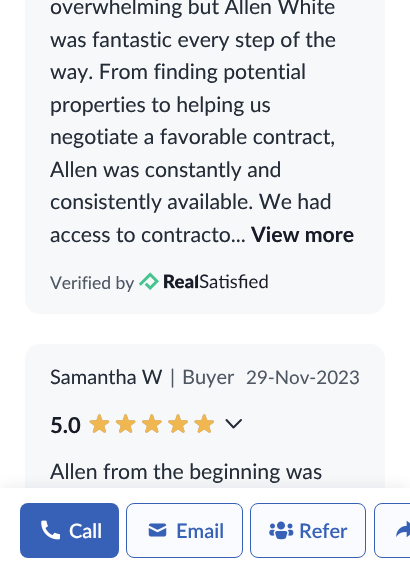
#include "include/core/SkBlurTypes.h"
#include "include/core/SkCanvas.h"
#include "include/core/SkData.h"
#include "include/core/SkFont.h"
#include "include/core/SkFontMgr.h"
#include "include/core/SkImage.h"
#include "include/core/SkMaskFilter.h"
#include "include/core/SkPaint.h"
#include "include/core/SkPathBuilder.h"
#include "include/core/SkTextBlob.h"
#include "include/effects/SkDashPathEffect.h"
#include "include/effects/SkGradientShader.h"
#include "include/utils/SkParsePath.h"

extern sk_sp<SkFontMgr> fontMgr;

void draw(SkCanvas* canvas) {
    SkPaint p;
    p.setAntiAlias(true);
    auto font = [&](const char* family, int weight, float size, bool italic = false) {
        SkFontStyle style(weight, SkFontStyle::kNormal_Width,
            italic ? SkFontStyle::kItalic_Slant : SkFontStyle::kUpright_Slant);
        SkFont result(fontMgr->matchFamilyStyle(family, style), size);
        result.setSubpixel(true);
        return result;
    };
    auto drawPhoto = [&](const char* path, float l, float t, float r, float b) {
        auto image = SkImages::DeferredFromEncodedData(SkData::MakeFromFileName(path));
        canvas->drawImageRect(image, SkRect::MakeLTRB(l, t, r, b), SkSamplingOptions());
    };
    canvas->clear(0xFFFFFFFF);
    p.setColor(0xFFF7F8FA);
    canvas->drawRoundRect(SkRect::MakeLTRB(25, -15, 385, 314), 15, 15, p);
    auto font1 = font("Lato", 400, 21.25f);
    p.setColor(0xFF242C37);
    {
        const struct { const char* s; float x, y; } items[] = {
            {"overwhelming but Allen White", 50, 14},
            {"was fantastic every step of the", 50, 47},
            {"way. From finding potential", 50, 79},
            {"properties to helping us", 50, 112},
            {"negotiate a favorable contract,", 50, 144},
            {"Allen was constantly and", 50, 177},
            {"consistently available. We had", 50, 209},
            {"access to contracto...", 50, 242},
        };
        for (auto [s, x, y] : items) {
            canvas->drawString(s, x, y, font1, p);
        }
    }
    auto font2 = font("Lato", 700, 21.25f);
    p.setColor(0xFF171C27);
    canvas->drawString("View more", 251, 242, font2, p);
    auto font3 = font("Lato", 400, 17.5f);
    p.setColor(0xFF4F5763);
    canvas->drawString("Verified by", 50, 289, font3, p);
    drawPhoto("media/1.png", 139, 272, 268, 290);
    p.setColor(0xFFF7F8FA);
    canvas->drawRoundRect(SkRect::MakeLTRB(25, 344, 385, 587), 15, 15, p);
    auto font4 = font("Lato", 400, 20);
    p.setColor(0xFF242C37);
    canvas->drawString("Samantha W", 50, 384, font4, p);
    p.setColor(0xFF4F5763);
    canvas->drawString("|", 170, 384, font4, p);
    canvas->drawString("Buyer", 182, 384, font4, p);
    auto font5 = font("Lato", 400, 18.75f);
    canvas->drawString("29-Nov-2023", 246, 384, font5, p);
    auto font6 = font("Lato", 700, 22);
    p.setColor(0xFF171C27);
    canvas->drawString("5.0", 50, 433, font6, p);
    drawPhoto("media/2.png", 89, 414, 214, 433);
    drawPhoto("media/3.png", 89, 414, 214, 433);
    p.setStyle(SkPaint::kStroke_Style);
    p.setStrokeWidth(2);
    p.setStrokeCap(SkPaint::kRound_Cap);
    p.setStrokeJoin(SkPaint::kRound_Join);
    p.setColor(0xFF242C37);
    canvas->drawPath(SkPathBuilder().moveTo(241, 420).lineTo(233.5f, 427.5f).lineTo(226.5f, 420).detach(), p);
    p.setStyle(SkPaint::kFill_Style);
    canvas->drawString("Allen from the beginning was", 50, 479, font1, p);
    p.setColor(0x0F101828);
    p.setMaskFilter(SkMaskFilter::MakeBlur(kNormal_SkBlurStyle, 6));
    canvas->drawRect(SkRect::MakeLTRB(1, 484, 409, 566), p);
    p.setMaskFilter(nullptr);
    p.setColor(0xFFFFFFFF);
    canvas->drawRect(SkRect::MakeLTRB(0, 488, 410, 572), p);
    p.setColor(0xFF3761B7);
    canvas->drawRoundRect(SkRect::MakeLTRB(20, 503, 119, 558), 8, 8, p);
    drawPhoto("media/4.png", 41, 520, 60, 540);
    auto font7 = font("Lato", 600, 20);
    p.setColor(0xFFFFFFFF);
    canvas->drawString("Call", 69, 538, font7, p);
    p.setColor(0xFFF9FBFF);
    canvas->drawRoundRect(SkRect::MakeLTRB(126.5f, 503.5f, 242.5f, 557.5f), 7.5f, 7.5f, p);
    p.setStyle(SkPaint::kStroke_Style);
    p.setStrokeWidth(1);
    p.setStrokeCap(SkPaint::kButt_Cap);
    p.setStrokeJoin(SkPaint::kMiter_Join);
    p.setColor(0xFF3761B7);
    canvas->drawRoundRect(SkRect::MakeLTRB(126.5f, 503.5f, 242.5f, 557.5f), 7.5f, 7.5f, p);
    drawPhoto("media/5.png", 148, 523, 167, 537);
    p.setStyle(SkPaint::kFill_Style);
    canvas->drawString("Email", 176, 538, font7, p);
    p.setColor(0xFFF9FBFF);
    canvas->drawRoundRect(SkRect::MakeLTRB(250.5f, 503.5f, 365.5f, 557.5f), 7.5f, 7.5f, p);
    p.setStyle(SkPaint::kStroke_Style);
    p.setColor(0xFF3761B7);
    canvas->drawRoundRect(SkRect::MakeLTRB(250.5f, 503.5f, 365.5f, 557.5f), 7.5f, 7.5f, p);
    drawPhoto("media/6.png", 269, 521, 294, 540);
    p.setStyle(SkPaint::kFill_Style);
    canvas->drawString("Refer", 299, 538, font7, p);
    p.setColor(0xFFF9FBFF);
    canvas->drawRoundRect(SkRect::MakeLTRB(374.5f, 503.5f, 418.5f, 557.5f), 7.5f, 7.5f, p);
    p.setStyle(SkPaint::kStroke_Style);
    p.setColor(0xFF3761B7);
    canvas->drawRoundRect(SkRect::MakeLTRB(374.5f, 503.5f, 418.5f, 557.5f), 7.5f, 7.5f, p);
    drawPhoto("media/7.png", 396, 520, 410, 538);
}
